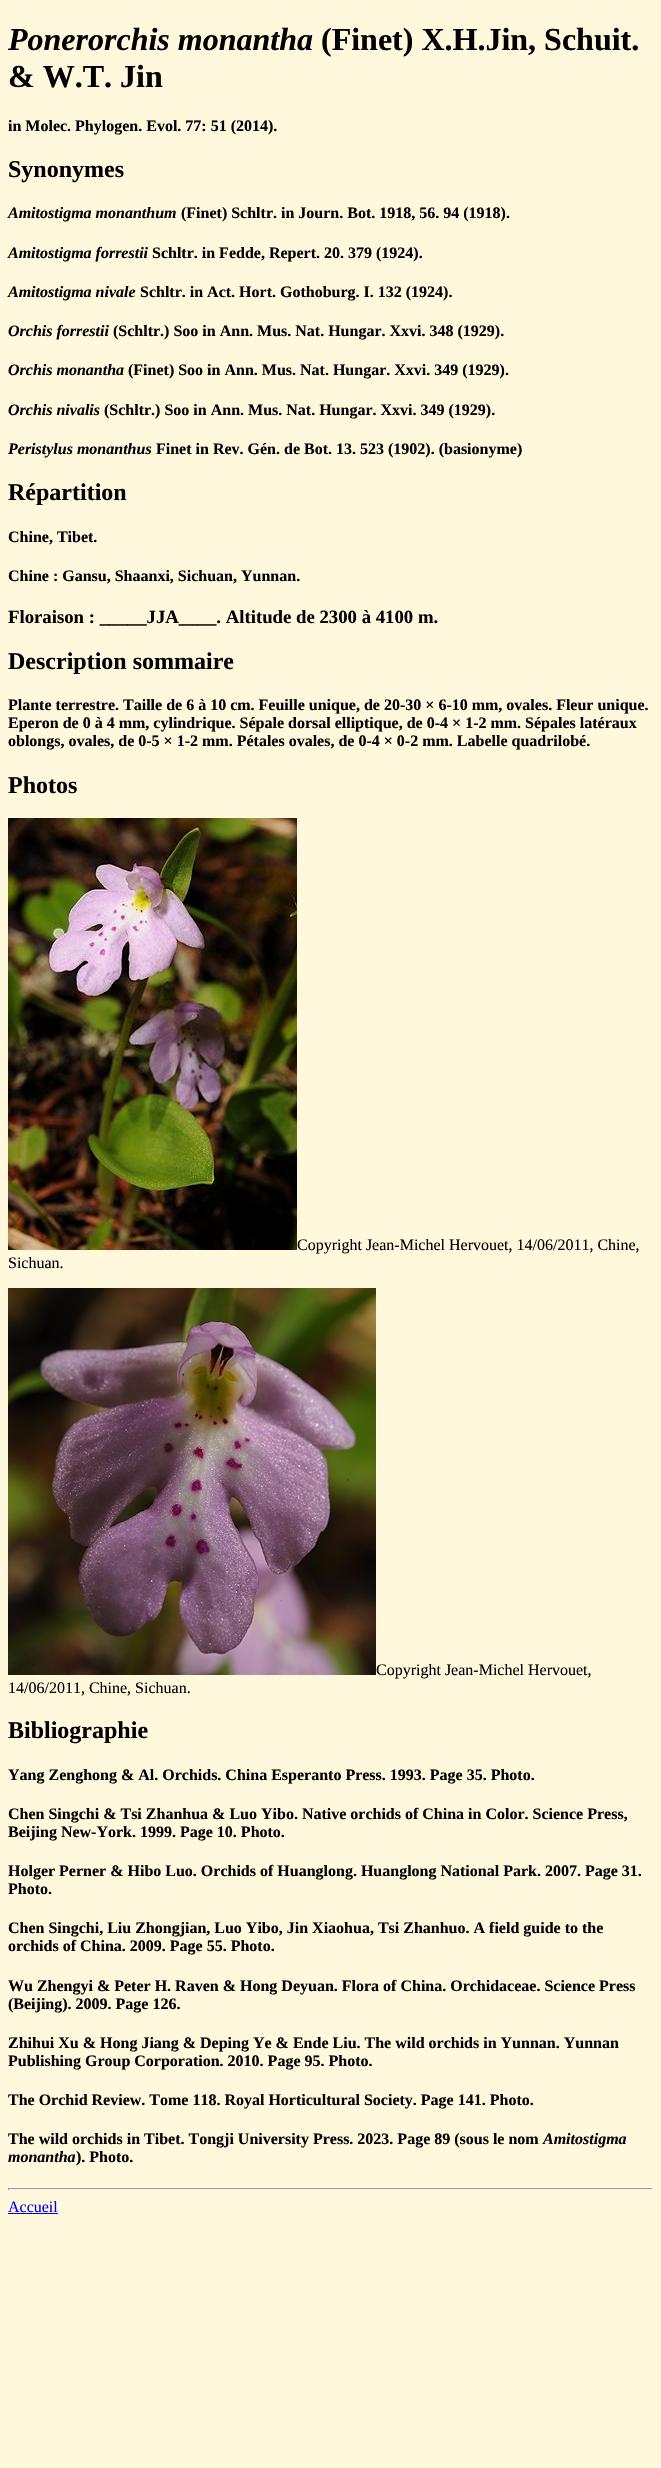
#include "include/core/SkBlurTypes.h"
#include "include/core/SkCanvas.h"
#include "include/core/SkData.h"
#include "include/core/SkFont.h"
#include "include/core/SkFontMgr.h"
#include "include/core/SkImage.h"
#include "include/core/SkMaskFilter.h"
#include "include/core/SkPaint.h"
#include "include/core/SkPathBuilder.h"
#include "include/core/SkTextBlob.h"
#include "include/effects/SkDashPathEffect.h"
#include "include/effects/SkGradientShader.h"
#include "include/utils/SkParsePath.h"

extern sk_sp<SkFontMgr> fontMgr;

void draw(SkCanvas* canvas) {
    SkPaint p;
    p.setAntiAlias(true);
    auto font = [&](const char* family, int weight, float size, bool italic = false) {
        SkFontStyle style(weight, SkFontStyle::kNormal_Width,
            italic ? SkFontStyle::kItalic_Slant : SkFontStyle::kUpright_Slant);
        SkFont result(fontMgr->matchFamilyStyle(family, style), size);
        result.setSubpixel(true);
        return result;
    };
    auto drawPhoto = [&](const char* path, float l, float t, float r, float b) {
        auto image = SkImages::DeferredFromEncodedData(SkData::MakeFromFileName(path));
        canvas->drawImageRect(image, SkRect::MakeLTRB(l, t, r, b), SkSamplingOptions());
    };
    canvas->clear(0xFFFFF8DC);
    auto font1 = font("Liberation Serif", 700, 32, true);
    p.setColor(0xFF000000);
    canvas->drawString("Ponerorchis monantha", 8, 50, font1, p);
    auto font2 = font("Liberation Serif", 700, 32);
    canvas->drawString("(Finet) X.H.Jin, Schuit.", 321, 50, font2, p);
    canvas->drawString("& W.T. Jin", 8, 87, font2, p);
    auto font3 = font("Liberation Serif", 700, 16);
    canvas->drawString("in Molec. Phylogen. Evol. 77: 51 (2014).", 8, 131, font3, p);
    auto font4 = font("Liberation Serif", 700, 24);
    canvas->drawString("Synonymes", 8, 177, font4, p);
    auto font5 = font("Liberation Serif", 700, 16, true);
    canvas->drawString("Amitostigma monanthum", 8, 218, font5, p);
    canvas->drawString("(Finet) Schltr. in Journ. Bot. 1918, 56. 94 (1918).", 181, 218, font3, p);
    canvas->drawString("Amitostigma forrestii", 8, 258, font5, p);
    canvas->drawString("Schltr. in Fedde, Repert. 20. 379 (1924).", 152, 258, font3, p);
    canvas->drawString("Amitostigma nivale", 8, 297, font5, p);
    canvas->drawString("Schltr. in Act. Hort. Gothoburg. I. 132 (1924).", 140, 297, font3, p);
    canvas->drawString("Orchis forrestii", 8, 336, font5, p);
    canvas->drawString("(Schltr.) Soo in Ann. Mus. Nat. Hungar. Xxvi. 348 (1929).", 113, 336, font3, p);
    canvas->drawString("Orchis monantha", 8, 375, font5, p);
    canvas->drawString("(Finet) Soo in Ann. Mus. Nat. Hungar. Xxvi. 349 (1929).", 128, 375, font3, p);
    canvas->drawString("Orchis nivalis", 8, 415, font5, p);
    canvas->drawString("(Schltr.) Soo in Ann. Mus. Nat. Hungar. Xxvi. 349 (1929).", 104, 415, font3, p);
    canvas->drawString("Peristylus monanthus", 8, 454, font5, p);
    canvas->drawString("Finet in Rev. Gén. de Bot. 13. 523 (1902). (basionyme)", 156, 454, font3, p);
    canvas->drawString("Répartition", 8, 500, font4, p);
    canvas->drawString("Chine, Tibet.", 8, 542, font3, p);
    canvas->drawString("Chine : Gansu, Shaanxi, Sichuan, Yunnan.", 8, 581, font3, p);
    auto font6 = font("Liberation Serif", 700, 18.75f);
    canvas->drawString("Floraison : _____JJA____. Altitude de 2300 à 4100 m.", 8, 623, font6, p);
    canvas->drawString("Description sommaire", 8, 669, font4, p);
    {
        const struct { const char* s; float x, y; } items[] = {
            {"Plante terrestre. Taille de 6 à 10 cm. Feuille unique, de 20-30 × 6-10 mm, ovales. Fleur unique.", 8, 710},
            {"Eperon de 0 à 4 mm, cylindrique. Sépale dorsal elliptique, de 0-4 × 1-2 mm. Sépales latéraux", 8, 728},
            {"oblongs, ovales, de 0-5 × 1-2 mm. Pétales ovales, de 0-4 × 0-2 mm. Labelle quadrilobé.", 8, 746},
        };
        for (auto [s, x, y] : items) {
            canvas->drawString(s, x, y, font3, p);
        }
    }
    canvas->drawString("Photos", 8, 793, font4, p);
    drawPhoto("media/1.png", 8, 818, 297, 1250);
    auto font7 = font("Liberation Serif", 400, 16);
    canvas->drawString("Copyright Jean-Michel Hervouet, 14/06/2011, Chine,", 297, 1250, font7, p);
    canvas->drawString("Sichuan.", 8, 1268, font7, p);
    drawPhoto("media/2.png", 8, 1288, 376, 1675);
    canvas->drawString("Copyright Jean-Michel Hervouet,", 376, 1675, font7, p);
    canvas->drawString("14/06/2011, Chine, Sichuan.", 8, 1693, font7, p);
    canvas->drawString("Bibliographie", 8, 1738, font4, p);
    {
        const struct { const char* s; float x, y; } items[] = {
            {"Yang Zenghong & Al. Orchids. China Esperanto Press. 1993. Page 35. Photo.", 8, 1780},
            {"Chen Singchi & Tsi Zhanhua & Luo Yibo. Native orchids of China in Color. Science Press,", 8, 1819},
            {"Beijing New-York. 1999. Page 10. Photo.", 8, 1837},
            {"Holger Perner & Hibo Luo. Orchids of Huanglong. Huanglong National Park. 2007. Page 31.", 8, 1876},
            {"Photo.", 8, 1894},
            {"Chen Singchi, Liu Zhongjian, Luo Yibo, Jin Xiaohua, Tsi Zhanhuo. A field guide to the", 8, 1933},
            {"orchids of China. 2009. Page 55. Photo.", 8, 1951},
            {"Wu Zhengyi & Peter H. Raven & Hong Deyuan. Flora of China. Orchidaceae. Science Press", 8, 1991},
            {"(Beijing). 2009. Page 126.", 8, 2009},
            {"Zhihui Xu & Hong Jiang & Deping Ye & Ende Liu. The wild orchids in Yunnan. Yunnan", 8, 2048},
            {"Publishing Group Corporation. 2010. Page 95. Photo.", 8, 2066},
            {"The Orchid Review. Tome 118. Royal Horticultural Society. Page 141. Photo.", 8, 2105},
            {"The wild orchids in Tibet. Tongji University Press. 2023. Page 89 (sous le nom", 8, 2144},
        };
        for (auto [s, x, y] : items) {
            canvas->drawString(s, x, y, font3, p);
        }
    }
    canvas->drawString("Amitostigma", 543, 2144, font5, p);
    canvas->drawString("monantha", 8, 2162, font5, p);
    canvas->drawString("). Photo.", 76, 2162, font3, p);
    {
        const struct { float l, t, r, b; SkColor color; } items[] = {
            {8, 2188, 653, 2189, 0xFF9F9F9F},
            {652, 2188, 653, 2190, 0xFFEEEEEE},
            {8, 2189, 653, 2190, 0xFFEEEEEE},
            {8, 2188, 9, 2190, 0xFF9F9F9F},
        };
        for (auto [l, t, r, b, color] : items) {
            p.setColor(color);
            canvas->drawRect(SkRect::MakeLTRB(l, t, r, b), p);
        }
    }
    p.setColor(0xFF0000EE);
    canvas->drawString("Accueil", 8, 2212, font7, p);
    canvas->drawRect(SkRect::MakeLTRB(8, 2213, 58, 2214), p);
}
